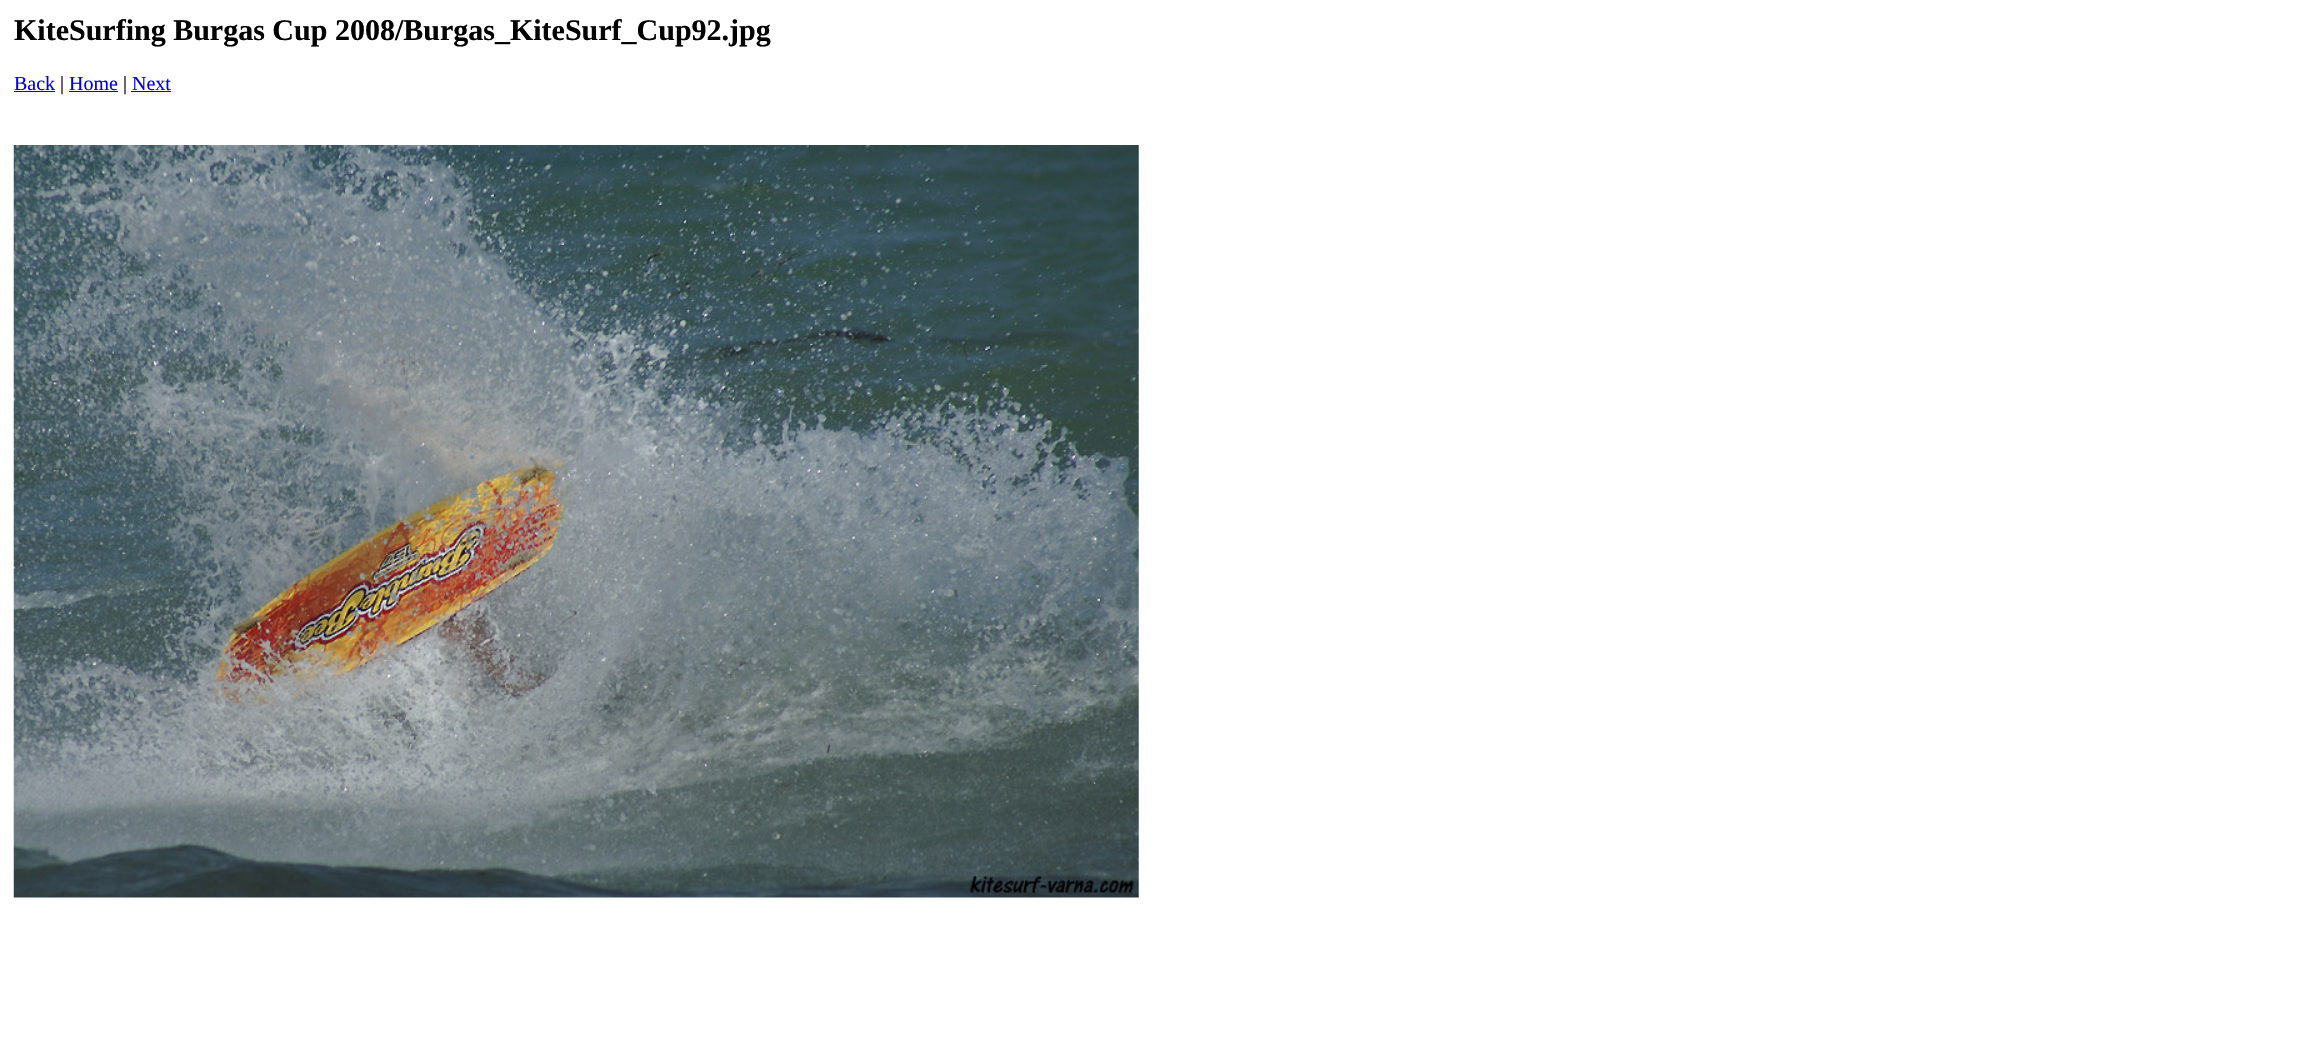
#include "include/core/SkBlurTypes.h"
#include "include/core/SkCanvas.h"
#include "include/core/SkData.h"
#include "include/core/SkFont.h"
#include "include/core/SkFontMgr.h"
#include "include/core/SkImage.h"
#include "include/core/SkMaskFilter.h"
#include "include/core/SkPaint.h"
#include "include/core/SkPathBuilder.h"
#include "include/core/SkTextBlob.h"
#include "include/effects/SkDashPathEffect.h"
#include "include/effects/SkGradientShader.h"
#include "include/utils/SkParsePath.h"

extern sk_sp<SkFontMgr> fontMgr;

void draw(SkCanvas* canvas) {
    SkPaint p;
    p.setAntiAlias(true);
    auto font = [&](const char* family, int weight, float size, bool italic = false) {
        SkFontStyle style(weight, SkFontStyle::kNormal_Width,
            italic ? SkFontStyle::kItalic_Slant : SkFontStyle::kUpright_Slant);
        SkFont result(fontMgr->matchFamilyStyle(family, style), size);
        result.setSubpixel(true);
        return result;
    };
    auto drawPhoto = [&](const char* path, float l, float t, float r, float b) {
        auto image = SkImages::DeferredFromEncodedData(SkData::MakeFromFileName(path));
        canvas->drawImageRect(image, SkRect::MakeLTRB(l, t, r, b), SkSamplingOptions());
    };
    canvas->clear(0xFFFFFFFF);
    auto font1 = font("Liberation Serif", 700, 30);
    p.setColor(0xFF000000);
    canvas->drawString("KiteSurfing Burgas Cup 2008/Burgas_KiteSurf_Cup92.jpg", 14, 40, font1, p);
    auto font2 = font("Liberation Serif", 400, 20);
    p.setColor(0xFF0000EE);
    canvas->drawString("Back", 14, 90, font2, p);
    canvas->drawRect(SkRect::MakeLTRB(14, 91, 55, 92), p);
    p.setColor(0xFF000000);
    canvas->drawString("|", 60, 90, font2, p);
    p.setColor(0xFF0000EE);
    canvas->drawString("Home", 69, 90, font2, p);
    canvas->drawRect(SkRect::MakeLTRB(69, 91, 118, 92), p);
    p.setColor(0xFF000000);
    canvas->drawString("|", 123, 90, font2, p);
    p.setColor(0xFF0000EE);
    canvas->drawString("Next", 132, 90, font2, p);
    canvas->drawRect(SkRect::MakeLTRB(131, 91, 171, 92), p);
    drawPhoto("media/1.png", 13, 145, 1139, 898);
}
